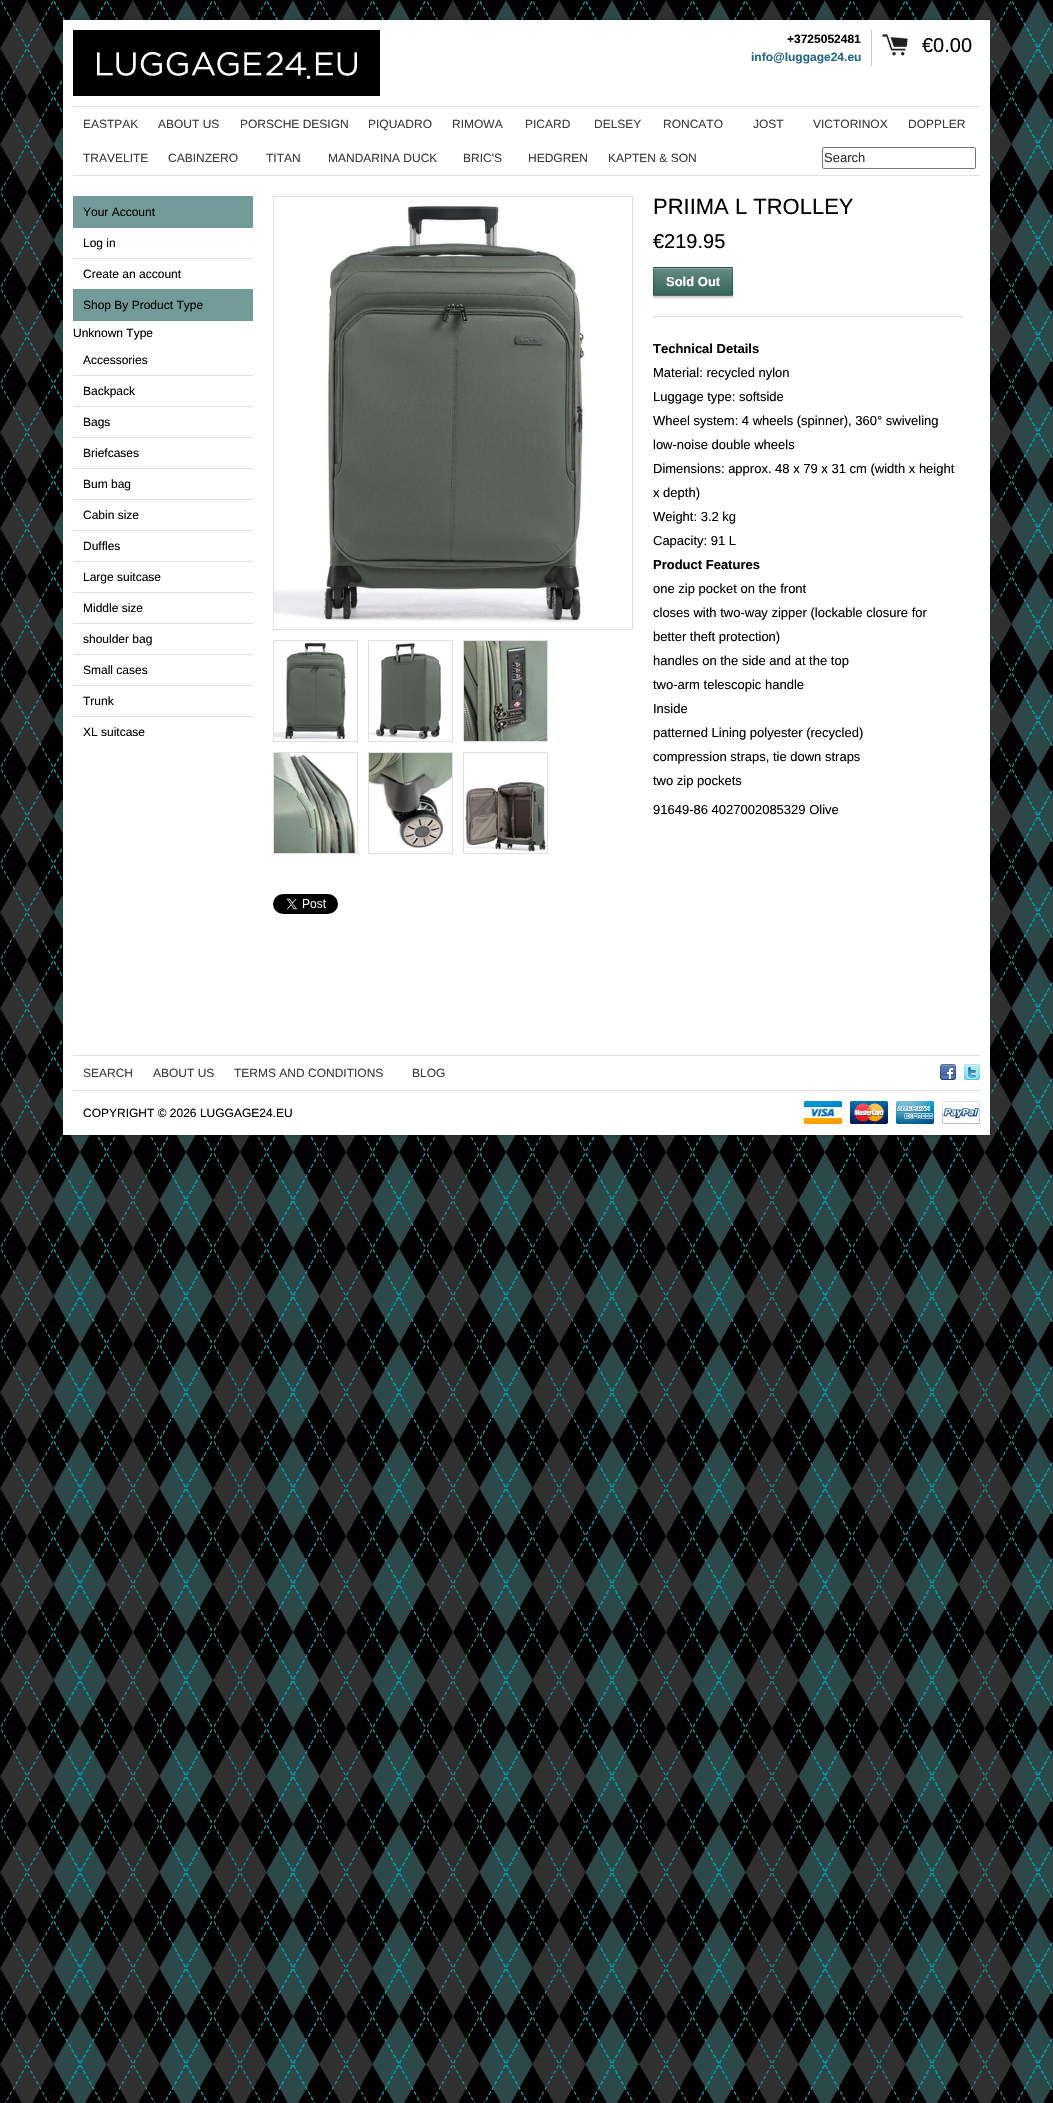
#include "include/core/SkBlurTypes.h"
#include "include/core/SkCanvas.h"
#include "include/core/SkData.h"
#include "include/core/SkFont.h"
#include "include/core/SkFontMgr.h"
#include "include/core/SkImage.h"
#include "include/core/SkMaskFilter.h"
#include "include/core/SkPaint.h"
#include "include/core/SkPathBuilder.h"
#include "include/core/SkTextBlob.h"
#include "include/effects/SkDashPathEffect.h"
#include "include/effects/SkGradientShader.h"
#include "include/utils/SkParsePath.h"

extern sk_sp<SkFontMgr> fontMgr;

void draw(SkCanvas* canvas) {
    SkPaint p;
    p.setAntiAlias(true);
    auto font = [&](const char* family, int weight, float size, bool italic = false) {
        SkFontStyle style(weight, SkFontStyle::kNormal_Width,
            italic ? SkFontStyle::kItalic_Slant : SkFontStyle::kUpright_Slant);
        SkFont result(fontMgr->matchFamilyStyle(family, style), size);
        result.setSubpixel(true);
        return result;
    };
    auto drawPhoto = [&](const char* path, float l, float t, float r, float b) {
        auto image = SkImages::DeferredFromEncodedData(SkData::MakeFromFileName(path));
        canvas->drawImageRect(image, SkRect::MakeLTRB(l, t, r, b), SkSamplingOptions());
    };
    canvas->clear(0xFFFFFFFF);
    drawPhoto("media/1.png", 0, 0, 1053, 2103);
    p.setColor(0x33000000);
    p.setMaskFilter(SkMaskFilter::MakeBlur(kNormal_SkBlurStyle, 2));
    canvas->drawRect(SkRect::MakeLTRB(63, 20, 990, 1135), p);
    p.setMaskFilter(nullptr);
    p.setColor(0xFFFFFFFF);
    canvas->drawRect(SkRect::MakeLTRB(63, 20, 990, 1135), p);
    drawPhoto("media/2.png", 73, 30, 380, 96);
    p.setColor(0xFFCCCCCC);
    canvas->drawRect(SkRect::MakeLTRB(871, 30, 872, 66), p);
    auto font1 = font("Liberation Sans", 700, 12);
    p.setColor(0xFF000000);
    canvas->drawString("+3725052481", 787, 43, font1, p);
    p.setColor(0xFF23687F);
    canvas->drawString("info@luggage24.eu", 751, 61, font1, p);
    drawPhoto("media/3.png", 882, 34, 908, 56);
    auto font2 = font("Liberation Sans", 400, 20);
    p.setColor(0xFF000000);
    canvas->drawString("€0.00", 922, 52, font2, p);
    p.setColor(0xFFE0E0E0);
    canvas->drawRect(SkRect::MakeLTRB(73, 106, 980, 107), p);
    canvas->drawRect(SkRect::MakeLTRB(73, 175, 980, 176), p);
    auto font3 = font("Liberation Sans", 400, 12);
    p.setColor(0xFF3C3C3C);
    {
        const struct { const char* s; float x, y; } items[] = {
            {"EASTPAK", 83, 128},
            {"ABOUT US", 158, 128},
            {"PORSCHE DESIGN", 240, 128},
            {"PIQUADRO", 368, 128},
            {"RIMOWA", 452, 128},
            {"PICARD", 525, 128},
            {"DELSEY", 594, 128},
            {"RONCATO", 663, 128},
            {"JOST", 753, 128},
            {"VICTORINOX", 813, 128},
            {"DOPPLER", 908, 128},
            {"TRAVELITE", 83, 162},
            {"CABINZERO", 168, 162},
            {"TITAN", 266, 162},
            {"MANDARINA DUCK", 328, 162},
            {"BRIC'S", 463, 162},
            {"HEDGREN", 528, 162},
            {"KAPTEN & SON", 608, 162},
        };
        for (auto [s, x, y] : items) {
            canvas->drawString(s, x, y, font3, p);
        }
    }
    p.setStyle(SkPaint::kStroke_Style);
    p.setStrokeWidth(1);
    p.setColor(0xFF767676);
    canvas->drawRoundRect(SkRect::MakeLTRB(822.5f, 147.5f, 975.5f, 168.5f), 1.5f, 1.5f, p);
    auto font4 = font("Liberation Sans", 400, 13);
    p.setStyle(SkPaint::kFill_Style);
    p.setColor(0xFF333333);
    canvas->drawString("Search", 824, 162, font4, p);
    p.setColor(0xFF739B99);
    canvas->drawRect(SkRect::MakeLTRB(73, 196, 253, 228), p);
    p.setColor(0xFF000000);
    canvas->drawString("Your Account", 83, 216, font3, p);
    p.setColor(0xFFE0E0E0);
    canvas->drawRect(SkRect::MakeLTRB(73, 258, 253, 259), p);
    p.setColor(0xFF000000);
    canvas->drawString("Log in", 83, 247, font3, p);
    canvas->drawString("Create an account", 83, 278, font3, p);
    p.setColor(0xFF739B99);
    canvas->drawRect(SkRect::MakeLTRB(73, 289, 253, 321), p);
    p.setColor(0xFF000000);
    canvas->drawString("Shop By Product Type", 83, 309, font3, p);
    canvas->drawString("Unknown Type", 73, 337, font3, p);
    p.setColor(0xFFE0E0E0);
    canvas->drawRect(SkRect::MakeLTRB(73, 375, 253, 376), p);
    p.setColor(0xFF000000);
    canvas->drawString("Accessories", 83, 364, font3, p);
    p.setColor(0xFFE0E0E0);
    canvas->drawRect(SkRect::MakeLTRB(73, 406, 253, 407), p);
    p.setColor(0xFF000000);
    canvas->drawString("Backpack", 83, 395, font3, p);
    p.setColor(0xFFE0E0E0);
    canvas->drawRect(SkRect::MakeLTRB(73, 437, 253, 438), p);
    p.setColor(0xFF000000);
    canvas->drawString("Bags", 83, 426, font3, p);
    p.setColor(0xFFE0E0E0);
    canvas->drawRect(SkRect::MakeLTRB(73, 468, 253, 469), p);
    p.setColor(0xFF000000);
    canvas->drawString("Briefcases", 83, 457, font3, p);
    p.setColor(0xFFE0E0E0);
    canvas->drawRect(SkRect::MakeLTRB(73, 499, 253, 500), p);
    p.setColor(0xFF000000);
    canvas->drawString("Bum bag", 83, 488, font3, p);
    p.setColor(0xFFE0E0E0);
    canvas->drawRect(SkRect::MakeLTRB(73, 530, 253, 531), p);
    p.setColor(0xFF000000);
    canvas->drawString("Cabin size", 83, 519, font3, p);
    p.setColor(0xFFE0E0E0);
    canvas->drawRect(SkRect::MakeLTRB(73, 561, 253, 562), p);
    p.setColor(0xFF000000);
    canvas->drawString("Duffles", 83, 550, font3, p);
    p.setColor(0xFFE0E0E0);
    canvas->drawRect(SkRect::MakeLTRB(73, 592, 253, 593), p);
    p.setColor(0xFF000000);
    canvas->drawString("Large suitcase", 83, 581, font3, p);
    p.setColor(0xFFE0E0E0);
    canvas->drawRect(SkRect::MakeLTRB(73, 623, 253, 624), p);
    p.setColor(0xFF000000);
    canvas->drawString("Middle size", 83, 612, font3, p);
    p.setColor(0xFFE0E0E0);
    canvas->drawRect(SkRect::MakeLTRB(73, 654, 253, 655), p);
    p.setColor(0xFF000000);
    canvas->drawString("shoulder bag", 83, 643, font3, p);
    p.setColor(0xFFE0E0E0);
    canvas->drawRect(SkRect::MakeLTRB(73, 685, 253, 686), p);
    p.setColor(0xFF000000);
    canvas->drawString("Small cases", 83, 674, font3, p);
    p.setColor(0xFFE0E0E0);
    canvas->drawRect(SkRect::MakeLTRB(73, 716, 253, 717), p);
    p.setColor(0xFF000000);
    canvas->drawString("Trunk", 83, 705, font3, p);
    canvas->drawString("XL suitcase", 83, 736, font3, p);
    p.setStyle(SkPaint::kStroke_Style);
    p.setColor(0xFFE0E0E0);
    canvas->drawRect(SkRect::MakeLTRB(273.5f, 196.5f, 632.5f, 629.5f), p);
    drawPhoto("media/4.png", 274, 206, 585, 623);
    canvas->drawRect(SkRect::MakeLTRB(273.5f, 640.5f, 357.5f, 741.5f), p);
    drawPhoto("media/5.png", 274, 643, 346, 741);
    canvas->drawRect(SkRect::MakeLTRB(368.5f, 640.5f, 452.5f, 741.5f), p);
    drawPhoto("media/6.png", 369, 641, 444, 740);
    canvas->drawRect(SkRect::MakeLTRB(463.5f, 640.5f, 547.5f, 741.5f), p);
    drawPhoto("media/7.png", 464, 641, 547, 741);
    canvas->drawRect(SkRect::MakeLTRB(273.5f, 752.5f, 357.5f, 853.5f), p);
    drawPhoto("media/8.png", 274, 753, 357, 853);
    canvas->drawRect(SkRect::MakeLTRB(368.5f, 752.5f, 452.5f, 853.5f), p);
    drawPhoto("media/9.png", 369, 753, 452, 849);
    canvas->drawRect(SkRect::MakeLTRB(463.5f, 752.5f, 547.5f, 853.5f), p);
    drawPhoto("media/10.png", 464, 781, 547, 852);
    auto font5 = font("Liberation Sans", 400, 22);
    p.setStyle(SkPaint::kFill_Style);
    p.setColor(0xFF000000);
    canvas->drawString("PRIIMA L TROLLEY", 653, 214, font5, p);
    canvas->drawString("€219.95", 653, 248, font2, p);
    p.setColor(0xFFE0E0E0);
    canvas->drawRect(SkRect::MakeLTRB(653, 316, 963, 317), p);
    p.setColor(0x33000000);
    p.setMaskFilter(SkMaskFilter::MakeBlur(kNormal_SkBlurStyle, 1));
    canvas->drawRoundRect(SkRect::MakeLTRB(653, 269, 733, 298), 1, 1, p);
    p.setMaskFilter(nullptr);
    p.setColor(0xFF33645A);
    canvas->drawRoundRect(SkRect::MakeLTRB(653, 267, 733, 296), 1, 1, p);
    {
        const SkColor colors[] = {0xFF33645A, 0xFF668B83};
        const float stops[] = {0, 1};
        const SkPoint ends[] = {{654, 295}, {654, 268}};
        p.setShader(SkGradientShader::MakeLinear(ends, colors, stops, 2, SkTileMode::kClamp));
        p.setAlpha(255);
    }
    canvas->drawRect(SkRect::MakeLTRB(653, 268, 733, 294), p);
    {
        const SkColor colors[] = {0x00FFFFFF, 0x40FFFFFF};
        const float stops[] = {0, 1};
        const SkPoint ends[] = {{654, 322}, {654, 295}};
        p.setShader(SkGradientShader::MakeLinear(ends, colors, stops, 2, SkTileMode::kClamp));
        p.setAlpha(255);
    }
    canvas->drawRect(SkRect::MakeLTRB(653, 295, 733, 296), p);
    p.setShader(nullptr);
    p.setColor(0xFF8CA7A1);
    canvas->drawRect(SkRect::MakeLTRB(654, 268, 732, 269), p);
    p.setStyle(SkPaint::kStroke_Style);
    p.setColor(0x33000000);
    canvas->drawRect(SkRect::MakeLTRB(653.5f, 267.5f, 732.5f, 295.5f), p);
    auto font6 = font("Liberation Sans", 700, 13);
    p.setStyle(SkPaint::kFill_Style);
    p.setColor(0xFFFFFFFF);
    canvas->drawString("Sold Out", 666, 286, font6, p);
    p.setColor(0xFF000000);
    canvas->drawString("Technical Details", 653, 353, font6, p);
    {
        const struct { const char* s; float x, y; } items[] = {
            {"Material: recycled nylon", 653, 377},
            {"Luggage type: softside", 653, 401},
            {"Wheel system: 4 wheels (spinner), 360° swiveling", 653, 425},
            {"low-noise double wheels", 653, 449},
            {"Dimensions: approx. 48 x 79 x 31 cm (width x height", 653, 473},
            {"x depth)", 653, 497},
            {"Weight: 3.2 kg", 653, 521},
            {"Capacity: 91 L", 653, 545},
        };
        for (auto [s, x, y] : items) {
            canvas->drawString(s, x, y, font4, p);
        }
    }
    canvas->drawString("Product Features", 653, 569, font6, p);
    {
        const struct { const char* s; float x, y; } items[] = {
            {"one zip pocket on the front", 653, 593},
            {"closes with two-way zipper (lockable closure for", 653, 617},
            {"better theft protection)", 653, 641},
            {"handles on the side and at the top", 653, 665},
            {"two-arm telescopic handle", 653, 689},
            {"Inside", 653, 713},
            {"patterned Lining polyester (recycled)", 653, 737},
            {"compression straps, tie down straps", 653, 761},
            {"two zip pockets", 653, 785},
            {"91649-86 4027002085329 Olive", 653, 814},
        };
        for (auto [s, x, y] : items) {
            canvas->drawString(s, x, y, font4, p);
        }
    }
    drawPhoto("media/11.png", 273, 894, 338, 914);
    p.setColor(0xFFE0E0E0);
    canvas->drawRect(SkRect::MakeLTRB(73, 1055, 980, 1056), p);
    canvas->drawRect(SkRect::MakeLTRB(73, 1090, 980, 1091), p);
    p.setColor(0xFF3C3C3C);
    {
        const struct { const char* s; float x, y; } items[] = {
            {"SEARCH", 83, 1077},
            {"ABOUT US", 153, 1077},
            {"TERMS AND CONDITIONS", 234, 1077},
            {"BLOG", 412, 1077},
        };
        for (auto [s, x, y] : items) {
            canvas->drawString(s, x, y, font3, p);
        }
    }
    drawPhoto("media/12.png", 940, 1064, 956, 1080);
    drawPhoto("media/13.png", 964, 1064, 980, 1080);
    p.setColor(0xFF000000);
    canvas->drawString("COPYRIGHT © 2026 LUGGAGE24.EU", 83, 1117, font3, p);
    drawPhoto("media/14.png", 804, 1101, 842, 1124);
    drawPhoto("media/15.png", 850, 1101, 888, 1124);
    drawPhoto("media/16.png", 896, 1101, 934, 1124);
    drawPhoto("media/17.png", 942, 1101, 980, 1124);
}
